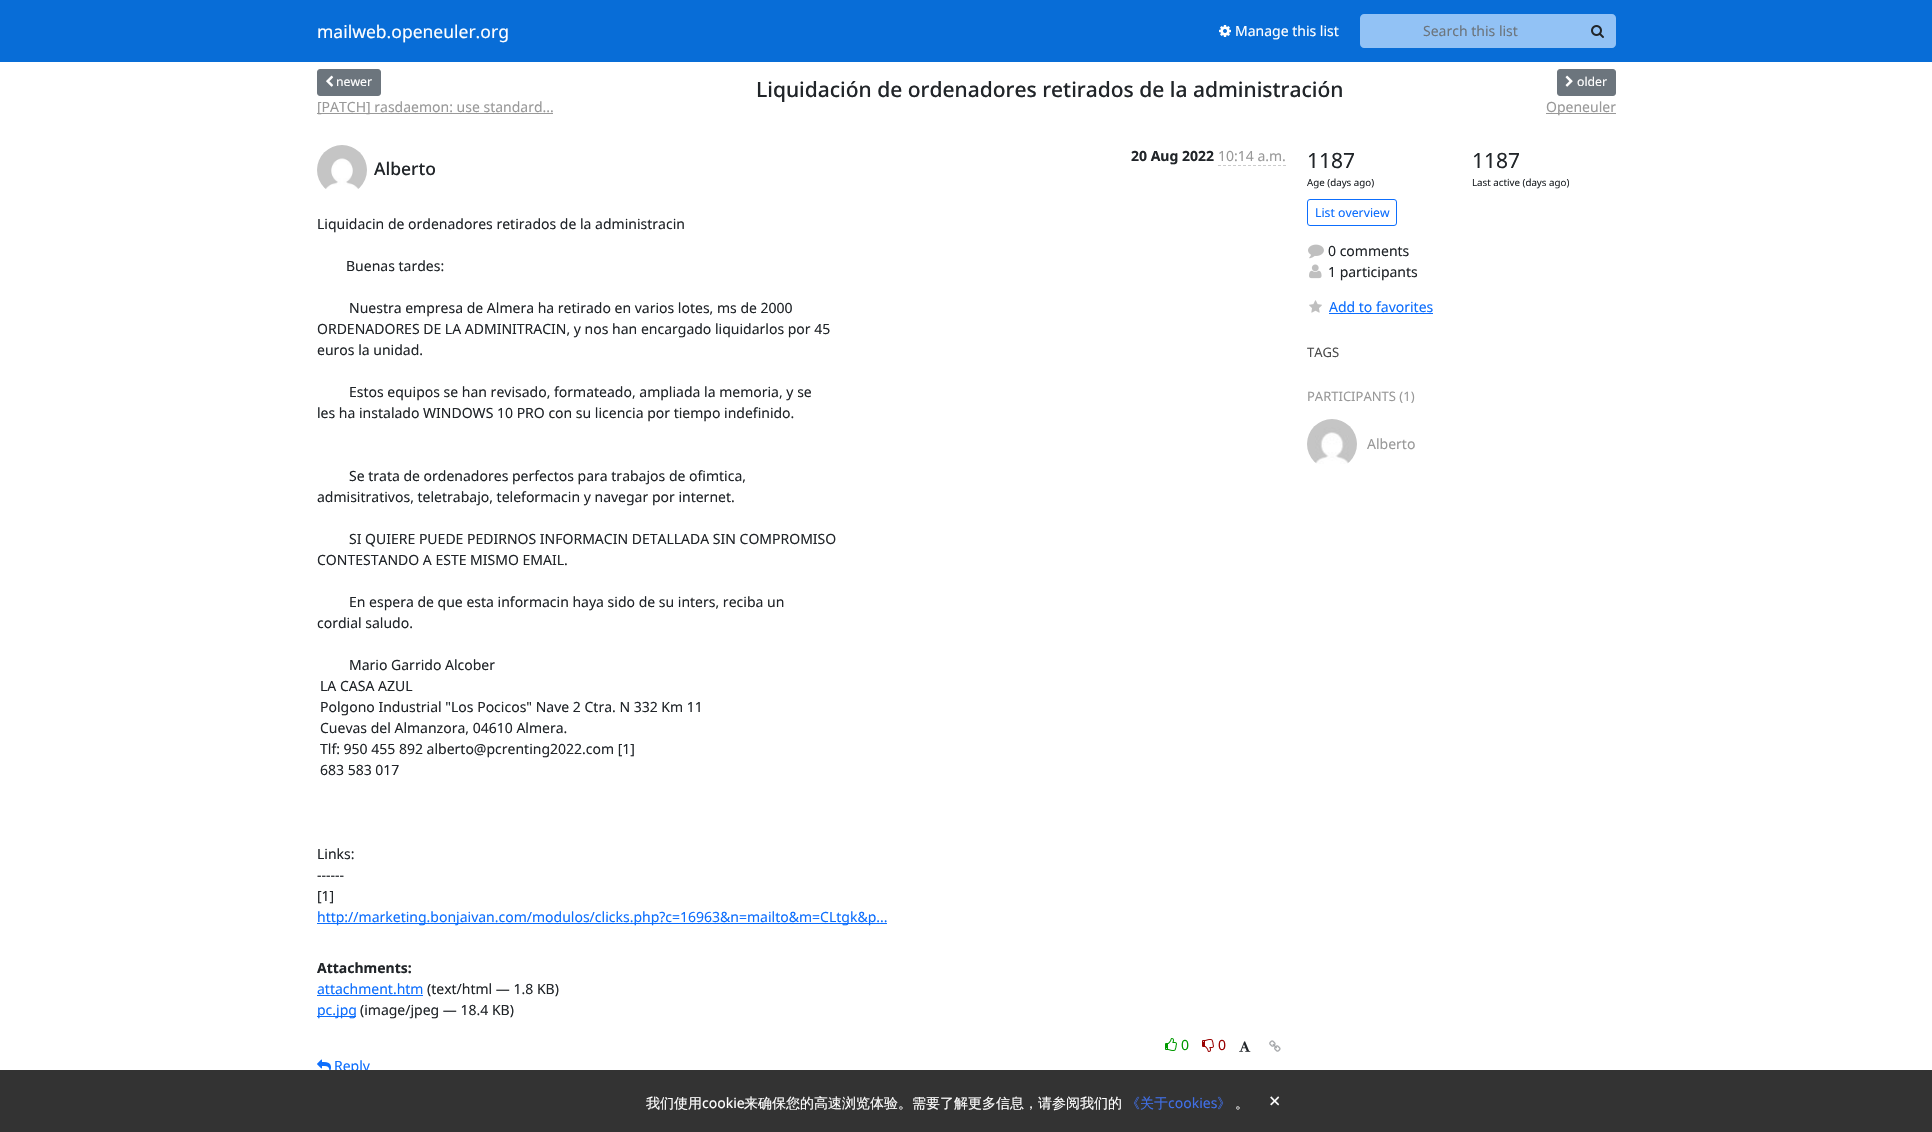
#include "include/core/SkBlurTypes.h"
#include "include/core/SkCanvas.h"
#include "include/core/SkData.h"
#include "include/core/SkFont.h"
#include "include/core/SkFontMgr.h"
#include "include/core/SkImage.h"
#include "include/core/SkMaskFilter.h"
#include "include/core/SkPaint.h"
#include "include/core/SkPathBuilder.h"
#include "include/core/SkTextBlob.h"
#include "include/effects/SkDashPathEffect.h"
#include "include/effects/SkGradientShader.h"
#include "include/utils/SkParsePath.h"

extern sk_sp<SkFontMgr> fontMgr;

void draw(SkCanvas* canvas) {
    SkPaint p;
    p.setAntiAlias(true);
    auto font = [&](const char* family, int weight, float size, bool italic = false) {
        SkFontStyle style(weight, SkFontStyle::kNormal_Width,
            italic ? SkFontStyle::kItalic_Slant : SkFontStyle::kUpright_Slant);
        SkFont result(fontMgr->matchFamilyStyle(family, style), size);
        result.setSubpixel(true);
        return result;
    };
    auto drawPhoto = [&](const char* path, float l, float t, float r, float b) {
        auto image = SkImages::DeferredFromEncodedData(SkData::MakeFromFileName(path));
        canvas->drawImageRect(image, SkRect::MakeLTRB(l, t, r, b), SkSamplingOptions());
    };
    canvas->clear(0xFFFFFFFF);
    p.setColor(0xFF086DD7);
    canvas->drawRect(SkRect::MakeLTRB(0, 0, 1932, 62), p);
    auto font1 = font("Noto Sans", 400, 17.5f);
    p.setColor(0xFFFFFFFF);
    canvas->drawString("mailweb.openeuler.org", 317, 38, font1, p);
    drawPhoto("media/1.png", 1219, 25, 1231, 37);
    auto font2 = font("Noto Sans", 400, 14);
    canvas->drawString("Manage this list", 1235, 36, font2, p);
    p.setColor(0xFF92C2F5);
    canvas->drawPath(SkPathBuilder().moveTo(1364, 14).lineTo(1581, 14).lineTo(1581, 48).lineTo(1364, 48).cubicTo(1362, 48, 1360, 46, 1360, 44).lineTo(1360, 18).cubicTo(1360, 16, 1362, 14, 1364, 14).close().detach(), p);
    p.setColor(0xFF6C757D);
    canvas->drawString("Search this list", 1423, 36, font2, p);
    p.setColor(0xFF92C2F5);
    canvas->drawPath(SkPathBuilder().moveTo(1580, 14).lineTo(1612, 14).cubicTo(1614, 14, 1616, 16, 1616, 18).lineTo(1616, 44).cubicTo(1616, 46, 1614, 48, 1612, 48).lineTo(1580, 48).close().detach(), p);
    drawPhoto("media/2.png", 1591, 25, 1604, 38);
    p.setColor(0xFF6C757D);
    canvas->drawRoundRect(SkRect::MakeLTRB(317.5f, 69.5f, 380.5f, 95.5f), 2.5f, 2.5f, p);
    p.setStyle(SkPaint::kStroke_Style);
    p.setStrokeWidth(1);
    canvas->drawRoundRect(SkRect::MakeLTRB(317.5f, 69.5f, 380.5f, 95.5f), 2.5f, 2.5f, p);
    drawPhoto("media/3.png", 326, 75, 334, 87);
    auto font3 = font("Noto Sans", 400, 12.25f);
    p.setStyle(SkPaint::kFill_Style);
    p.setColor(0xFFFFFFFF);
    canvas->drawString("newer", 336, 86, font3, p);
    p.setColor(0xFF999999);
    canvas->drawRect(SkRect::MakeLTRB(317, 113, 553, 114), p);
    canvas->drawString("[PATCH] rasdaemon: use standard...", 317, 112, font2, p);
    auto font4 = font("Noto Sans", 500, 21);
    p.setColor(0xFF212529);
    canvas->drawString("Liquidación de ordenadores retirados de la administración", 756, 97, font4, p);
    p.setColor(0xFF6C757D);
    canvas->drawRoundRect(SkRect::MakeLTRB(1557.5f, 69.5f, 1615.5f, 95.5f), 2.5f, 2.5f, p);
    p.setStyle(SkPaint::kStroke_Style);
    canvas->drawRoundRect(SkRect::MakeLTRB(1557.5f, 69.5f, 1615.5f, 95.5f), 2.5f, 2.5f, p);
    drawPhoto("media/4.png", 1565, 75, 1573, 87);
    p.setStyle(SkPaint::kFill_Style);
    p.setColor(0xFFFFFFFF);
    canvas->drawString("older", 1577, 86, font3, p);
    p.setColor(0xFF999999);
    canvas->drawRect(SkRect::MakeLTRB(1546, 113, 1616, 114), p);
    canvas->drawString("Openeuler", 1546, 112, font2, p);
    auto font5 = font("Noto Sans", 700, 14);
    p.setColor(0xFF212529);
    canvas->drawString("20 Aug 2022", 1131, 161, font5, p);
    p.setColor(0xFF999999);
    canvas->drawString("10:14 a.m.", 1218, 161, font2, p);
    p.setStyle(SkPaint::kStroke_Style);
    p.setColor(0xFFCCCCCC);
    p.setPathEffect(SkDashPathEffect::Make({{3, 2}}, 0));
    canvas->drawPath(SkPathBuilder().moveTo(1218, 165.5f).lineTo(1286, 165.5f).detach(), p);
    p.setPathEffect(nullptr);
    drawPhoto("media/5.png", 317, 145, 367, 189);
    auto font6 = font("Noto Sans", 500, 17.5f);
    p.setStyle(SkPaint::kFill_Style);
    p.setColor(0xFF212529);
    canvas->drawString("Alberto", 374, 175, font6, p);
    {
        const struct { const char* s; float x, y; } items[] = {
            {"Liquidacin de ordenadores retirados de la administracin", 317, 229},
            {"Buenas tardes:", 346, 271},
            {"Nuestra empresa de Almera ha retirado en varios lotes, ms de 2000", 349, 313},
            {"ORDENADORES DE LA ADMINITRACIN, y nos han encargado liquidarlos por 45", 317, 334},
            {"euros la unidad.", 317, 355},
            {"Estos equipos se han revisado, formateado, ampliada la memoria, y se", 349, 397},
            {"les ha instalado WINDOWS 10 PRO con su licencia por tiempo indefinido.", 317, 418},
            {"Se trata de ordenadores perfectos para trabajos de ofimtica,", 349, 481},
            {"admisitrativos, teletrabajo, teleformacin y navegar por internet.", 317, 502},
            {"SI QUIERE PUEDE PEDIRNOS INFORMACIN DETALLADA SIN COMPROMISO", 349, 544},
            {"CONTESTANDO A ESTE MISMO EMAIL.", 317, 565},
            {"En espera de que esta informacin haya sido de su inters, reciba un", 349, 607},
            {"cordial saludo.", 317, 628},
            {"Mario Garrido Alcober", 349, 670},
            {"LA CASA AZUL", 320, 691},
            {"Polgono Industrial \"Los Pocicos\" Nave 2 Ctra. N 332 Km 11", 320, 712},
            {"Cuevas del Almanzora, 04610 Almera.", 320, 733},
            {"Tlf: 950 455 892 alberto@pcrenting2022.com [1]", 320, 754},
            {"683 583 017", 320, 775},
            {"Links:", 317, 859},
            {"------", 317, 880},
            {"[1]", 317, 901},
        };
        for (auto [s, x, y] : items) {
            canvas->drawString(s, x, y, font2, p);
        }
    }
    p.setColor(0xFF0D6EFD);
    canvas->drawRect(SkRect::MakeLTRB(317, 923, 887, 924), p);
    canvas->drawString("http://marketing.bonjaivan.com/modulos/clicks.php?c=16963&n=mailto&m=CLtgk&p...", 317, 922, font2, p);
    p.setColor(0xFF212529);
    canvas->drawString("Attachments:", 317, 973, font5, p);
    p.setColor(0xFF0D6EFD);
    canvas->drawString("attachment.htm", 317, 994, font2, p);
    canvas->drawRect(SkRect::MakeLTRB(317, 995, 423, 996), p);
    p.setColor(0xFF212529);
    canvas->drawString("(text/html — 1.8 KB)", 427, 994, font2, p);
    p.setColor(0xFF0D6EFD);
    canvas->drawRect(SkRect::MakeLTRB(317, 1016, 356, 1017), p);
    canvas->drawString("pc.jpg", 317, 1015, font2, p);
    p.setColor(0xFF212529);
    canvas->drawString("(image/jpeg — 18.4 KB)", 360, 1015, font2, p);
    drawPhoto("media/6.png", 1165, 1038, 1177, 1051);
    p.setColor(0xFF009900);
    canvas->drawString("0", 1181, 1050, font2, p);
    drawPhoto("media/7.png", 1202, 1039, 1214, 1052);
    p.setColor(0xFF990000);
    canvas->drawString("0", 1218, 1050, font2, p);
    drawPhoto("media/8.png", 1239, 1041, 1251, 1052);
    drawPhoto("media/9.png", 1269, 1040, 1281, 1052);
    drawPhoto("media/10.png", 317, 1059, 331, 1070);
    p.setColor(0xFF0D6EFD);
    canvas->drawString("Reply", 334, 1071, font2, p);
    auto font7 = font("Noto Sans", 400, 21);
    p.setColor(0xFF212529);
    canvas->drawString("1187", 1307, 168, font7, p);
    auto font8 = font("Noto Sans", 400, 9.75f);
    canvas->drawString("Age (days ago)", 1307, 186, font8, p);
    canvas->drawString("1187", 1472, 168, font7, p);
    canvas->drawString("Last active (days ago)", 1472, 186, font8, p);
    p.setStyle(SkPaint::kStroke_Style);
    p.setColor(0xFF0D6EFD);
    canvas->drawRoundRect(SkRect::MakeLTRB(1307.5f, 199.5f, 1396.5f, 225.5f), 2.5f, 2.5f, p);
    p.setStyle(SkPaint::kFill_Style);
    canvas->drawString("List overview", 1315, 217, font3, p);
    drawPhoto("media/11.png", 1308, 244, 1324, 259);
    p.setColor(0xFF212529);
    canvas->drawString("0 comments", 1328, 256, font2, p);
    drawPhoto("media/12.png", 1309, 264, 1322, 279);
    canvas->drawString("1 participants", 1328, 277, font2, p);
    drawPhoto("media/13.png", 1309, 300, 1322, 313);
    p.setColor(0xFF0D6EFD);
    canvas->drawString("Add to favorites", 1329, 312, font2, p);
    canvas->drawRect(SkRect::MakeLTRB(1329, 313, 1433, 314), p);
    auto font9 = font("Noto Sans", 400, 13);
    p.setColor(0xFF4D4D4D);
    canvas->drawString("TAGS", 1307, 357, font9, p);
    p.setColor(0xFF999999);
    canvas->drawString("PARTICIPANTS (1)", 1307, 401, font9, p);
    drawPhoto("media/14.png", 1307, 419, 1357, 464);
    canvas->drawString("Alberto", 1367, 449, font2, p);
    p.setColor(0xFF333333);
    canvas->drawRect(SkRect::MakeLTRB(0, 1070, 1932, 1132), p);
    auto font10 = font("WenQuanYi Zen Hei", 500, 14);
    p.setColor(0xFFFFFFFF);
    canvas->drawString("我们使用", 646, 1108, font10, p);
    canvas->drawString("cookie", 702, 1108, font2, p);
    canvas->drawString("来确保您的高速浏览体验。需要了解更多信息，请参阅我们的", 744, 1108, font10, p);
    p.setColor(0xFF406FE7);
    canvas->drawString("《关于", 1126, 1108, font10, p);
    canvas->drawString("cookies", 1168, 1108, font2, p);
    canvas->drawString("》", 1217, 1108, font10, p);
    p.setColor(0xFFFFFFFF);
    canvas->drawString("。", 1235, 1108, font10, p);
    auto font11 = font("Noto Sans", 400, 20);
    canvas->drawString("×", 1269, 1108, font11, p);
}
